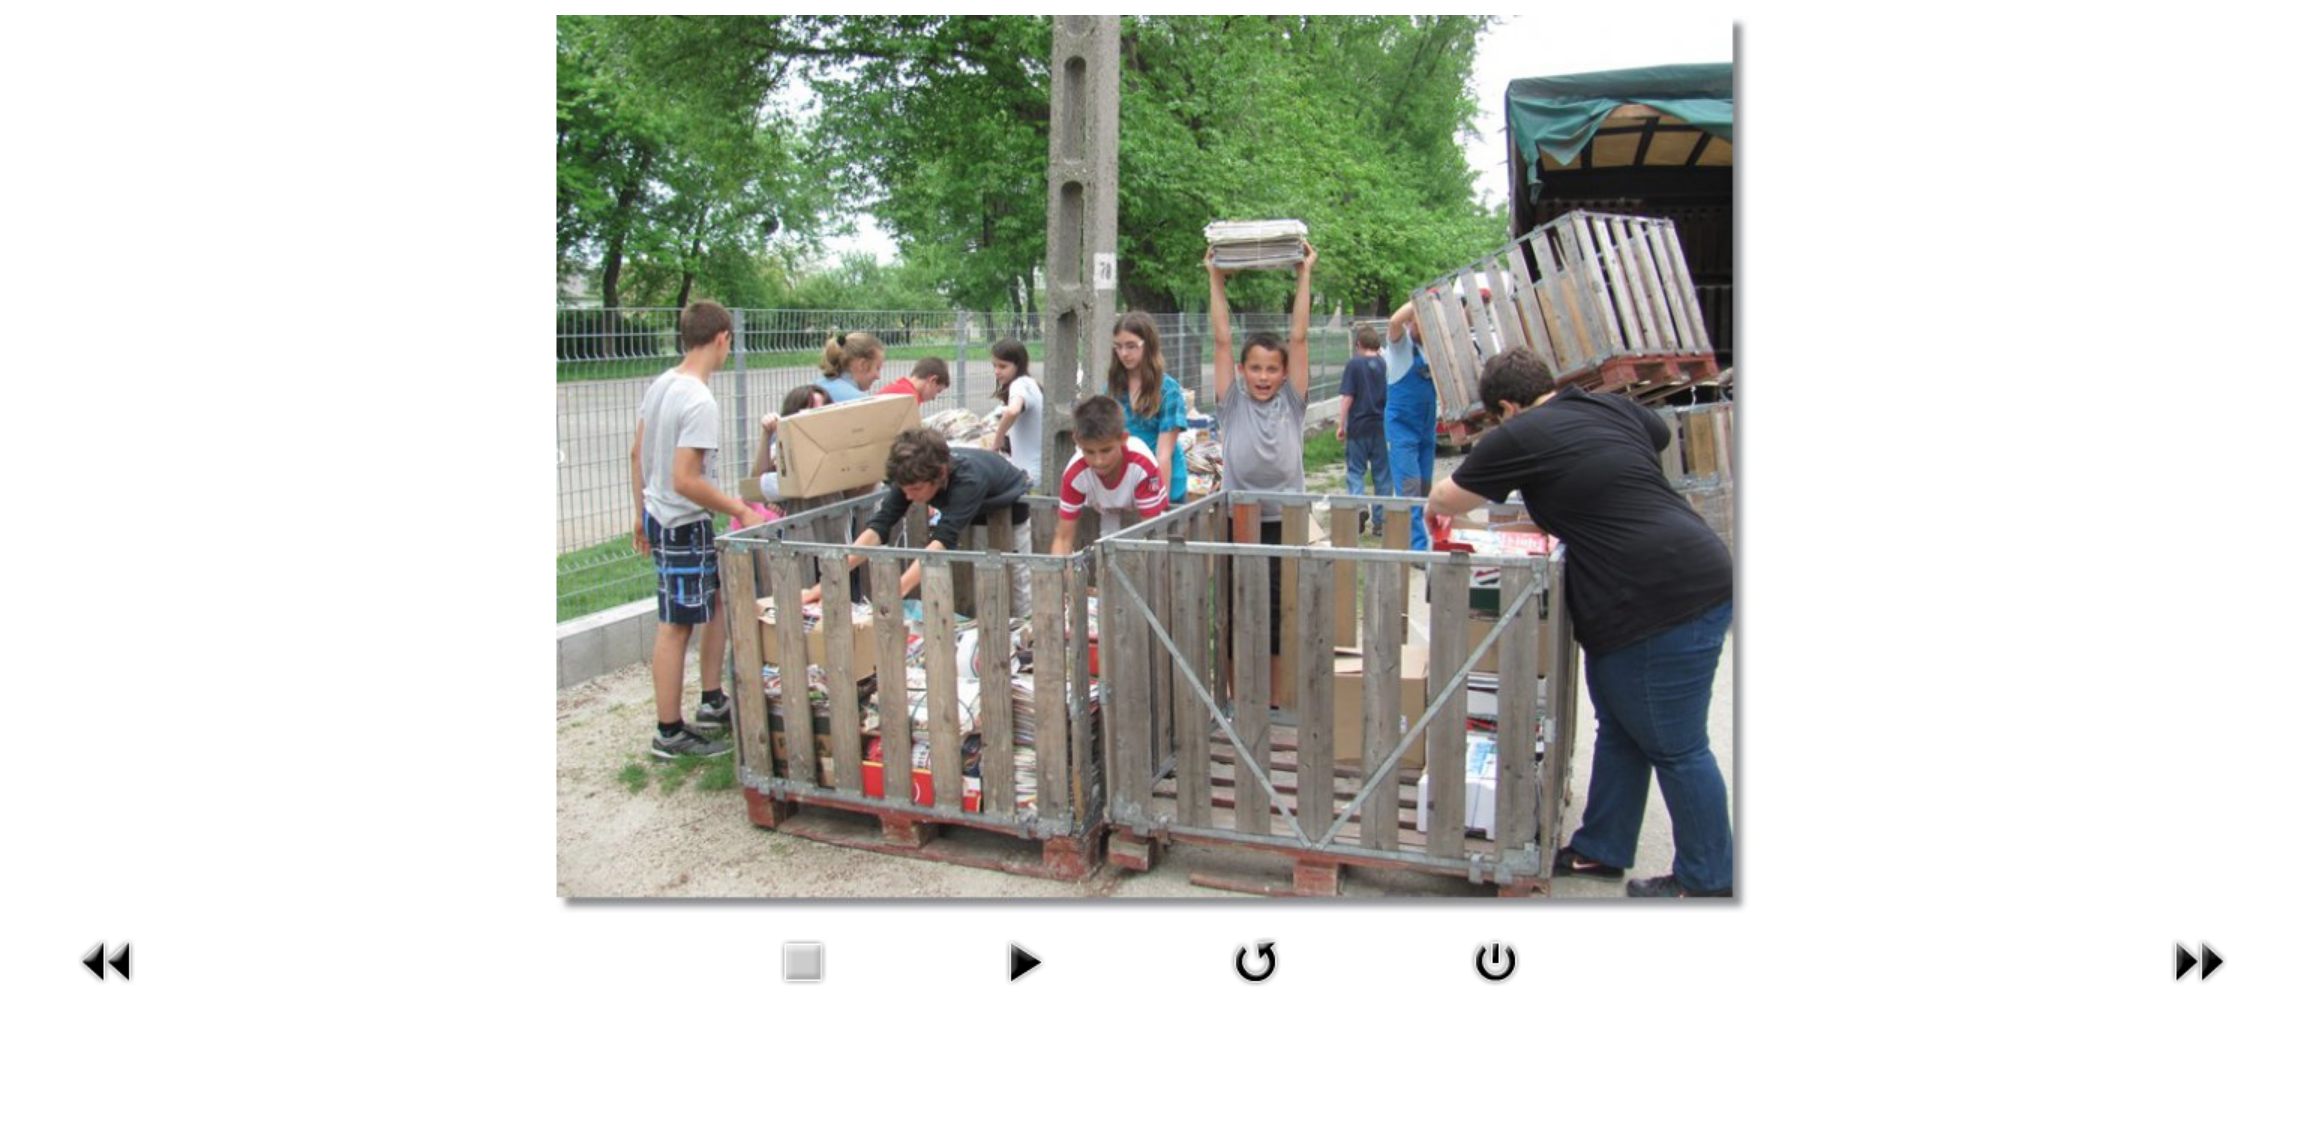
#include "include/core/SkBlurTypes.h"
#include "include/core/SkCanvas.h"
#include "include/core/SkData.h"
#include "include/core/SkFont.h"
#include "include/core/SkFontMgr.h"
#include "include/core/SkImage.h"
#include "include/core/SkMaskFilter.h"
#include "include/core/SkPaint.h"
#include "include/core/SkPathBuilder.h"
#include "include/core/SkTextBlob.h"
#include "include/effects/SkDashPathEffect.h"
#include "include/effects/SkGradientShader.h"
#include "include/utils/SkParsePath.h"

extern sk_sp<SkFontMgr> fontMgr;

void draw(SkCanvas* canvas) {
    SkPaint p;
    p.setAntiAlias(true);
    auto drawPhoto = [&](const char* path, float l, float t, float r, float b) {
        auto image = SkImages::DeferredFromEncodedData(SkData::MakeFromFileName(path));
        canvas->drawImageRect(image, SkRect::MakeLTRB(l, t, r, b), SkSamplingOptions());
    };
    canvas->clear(0xFFFFFFFF);
    drawPhoto("media/1.png", 556, 15, 1750, 913);
    drawPhoto("media/2.png", 78, 938, 135, 985);
    drawPhoto("media/3.png", 780, 939, 827, 986);
    drawPhoto("media/4.png", 1005, 939, 1046, 986);
    drawPhoto("media/5.png", 1230, 937, 1281, 987);
    drawPhoto("media/6.png", 1470, 938, 1521, 986);
    drawPhoto("media/7.png", 2170, 938, 2228, 985);
}
